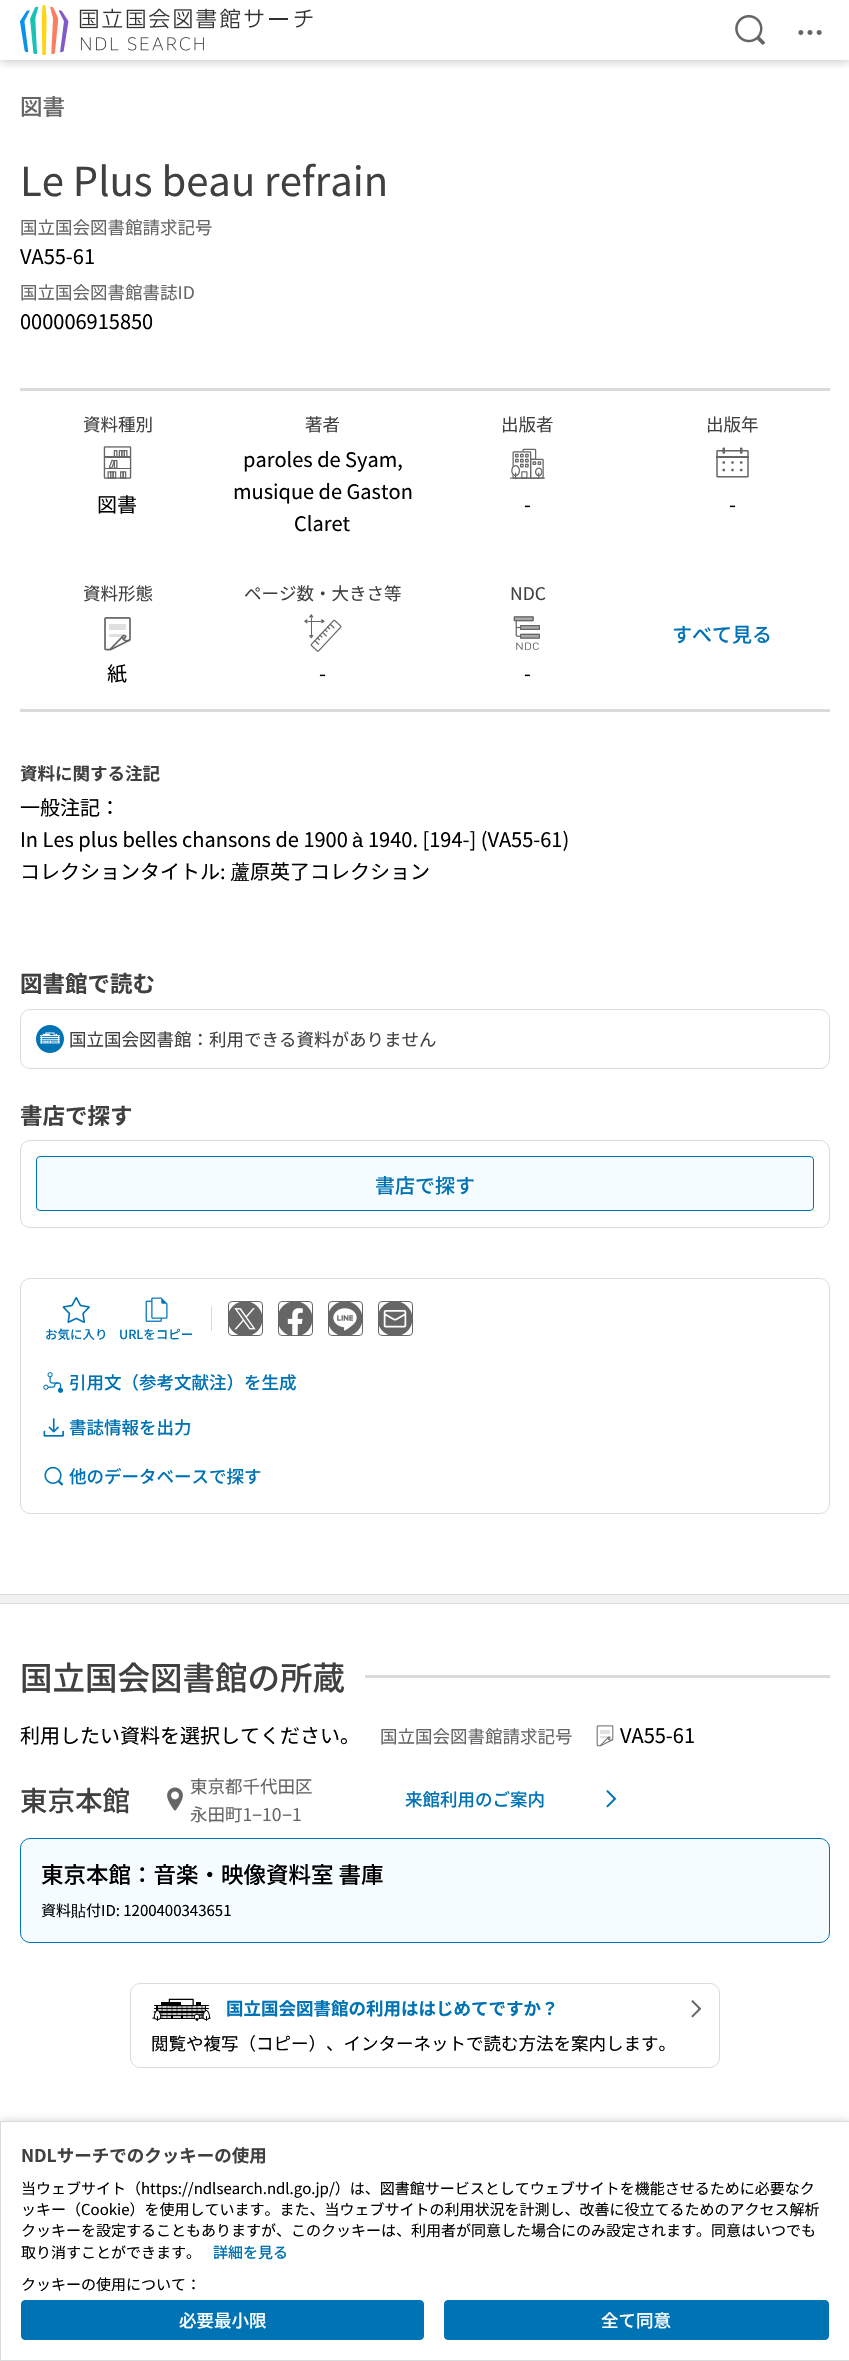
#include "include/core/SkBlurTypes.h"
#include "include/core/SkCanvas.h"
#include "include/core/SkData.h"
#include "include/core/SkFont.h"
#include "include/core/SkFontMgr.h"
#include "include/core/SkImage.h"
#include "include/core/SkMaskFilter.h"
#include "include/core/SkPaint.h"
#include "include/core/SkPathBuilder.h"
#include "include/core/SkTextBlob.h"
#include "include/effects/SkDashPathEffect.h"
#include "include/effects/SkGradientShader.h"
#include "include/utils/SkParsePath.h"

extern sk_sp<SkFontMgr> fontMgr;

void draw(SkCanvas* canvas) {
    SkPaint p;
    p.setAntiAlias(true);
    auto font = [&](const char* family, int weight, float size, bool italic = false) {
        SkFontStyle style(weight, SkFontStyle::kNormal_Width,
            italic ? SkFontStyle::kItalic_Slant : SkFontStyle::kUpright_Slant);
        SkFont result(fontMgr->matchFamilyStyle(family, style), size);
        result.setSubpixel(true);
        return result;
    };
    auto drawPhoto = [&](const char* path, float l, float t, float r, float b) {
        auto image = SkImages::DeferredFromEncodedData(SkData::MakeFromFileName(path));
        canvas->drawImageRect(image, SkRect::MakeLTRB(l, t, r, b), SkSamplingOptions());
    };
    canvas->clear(0xFFFFFFFF);
    canvas->save();
    canvas->clipRect(SkRect::MakeLTRB(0, 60, 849, 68));
    p.setColor(0x3D000000);
    p.setMaskFilter(SkMaskFilter::MakeBlur(kNormal_SkBlurStyle, 5));
    canvas->drawRect(SkRect::MakeLTRB(0, 1, 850, 61), p);
    p.setMaskFilter(nullptr);
    canvas->restore();
    drawPhoto("media/1.png", 20, 5, 313, 55);
    drawPhoto("media/2.png", 735, 14, 765, 45);
    drawPhoto("media/3.png", 798, 30, 822, 35);
    auto font1 = font("Noto Sans JP", 500, 22.5f);
    p.setColor(0xFF666666);
    canvas->drawString("図書", 20, 115, font1, p);
    auto font2 = font("Noto Sans JP", 400, 40);
    p.setColor(0xFF404040);
    canvas->drawString("Le Plus beau refrain", 20, 196, font2, p);
    auto font3 = font("Noto Sans JP", 400, 17.5f);
    p.setColor(0xFF666666);
    canvas->drawString("国立国会図書館請求記号", 20, 234, font3, p);
    auto font4 = font("Noto Sans JP", 400, 20);
    p.setColor(0xFF000000);
    canvas->drawString("VA55-61", 20, 264, font4, p);
    p.setColor(0xFF666666);
    canvas->drawString("国立国会図書館書誌ID", 20, 299, font3, p);
    p.setColor(0xFF000000);
    canvas->drawString("000006915850", 20, 329, font4, p);
    p.setColor(0xFFDBDBDB);
    canvas->drawRect(SkRect::MakeLTRB(20, 388, 830, 391), p);
    p.setColor(0xFF404040);
    canvas->drawString("資料種別", 83, 431, font3, p);
    drawPhoto("media/4.png", 103, 446, 132, 479);
    p.setColor(0xFF000000);
    canvas->drawString("図書", 97, 512, font4, p);
    p.setColor(0xFF404040);
    canvas->drawString("著者", 305, 431, font3, p);
    p.setColor(0xFF000000);
    {
        const struct { const char* s; float x, y; } items[] = {
            {"paroles de Syam,", 243, 467},
            {"musique de Gaston", 233, 499},
            {"Claret", 294, 531},
        };
        for (auto [s, x, y] : items) {
            canvas->drawString(s, x, y, font4, p);
        }
    }
    p.setColor(0xFF404040);
    canvas->drawString("出版者", 501, 431, font3, p);
    drawPhoto("media/5.png", 510, 448, 545, 479);
    p.setColor(0xFF000000);
    canvas->drawString("-", 524, 512, font4, p);
    p.setColor(0xFF404040);
    canvas->drawString("出版年", 706, 431, font3, p);
    drawPhoto("media/6.png", 716, 447, 749, 478);
    p.setColor(0xFF000000);
    canvas->drawString("-", 729, 512, font4, p);
    p.setColor(0xFF404040);
    canvas->drawString("資料形態", 83, 600, font3, p);
    drawPhoto("media/7.png", 104, 617, 131, 651);
    p.setColor(0xFF000000);
    canvas->drawString("紙", 107, 681, font4, p);
    p.setColor(0xFF404040);
    canvas->drawString("ページ数・大きさ等", 244, 600, font3, p);
    drawPhoto("media/8.png", 304, 614, 342, 652);
    p.setColor(0xFF000000);
    canvas->drawString("-", 319, 681, font4, p);
    p.setColor(0xFF404040);
    canvas->drawString("NDC", 510, 600, font3, p);
    drawPhoto("media/9.png", 513, 616, 540, 650);
    p.setColor(0xFF000000);
    canvas->drawString("-", 524, 681, font4, p);
    auto font5 = font("Noto Sans JP", 500, 20);
    p.setColor(0xFF0073B5);
    canvas->drawString("すべて見る", 672, 642, font5, p);
    p.setColor(0xFFDBDBDB);
    canvas->drawRect(SkRect::MakeLTRB(20, 709, 830, 712), p);
    auto font6 = font("Noto Sans JP", 700, 17.5f);
    p.setColor(0xFF404040);
    canvas->drawString("資料に関する注記", 20, 780, font6, p);
    p.setColor(0xFF000000);
    canvas->drawString("一般注記：", 20, 815, font4, p);
    canvas->drawString("In Les plus belles chansons de 1900", 20, 847, font4, p);
    auto font7 = font("Liberation Sans", 400, 20);
    canvas->drawString("à", 352, 847, font7, p);
    canvas->drawString("1940. [194-] (VA55-61)", 368, 847, font4, p);
    canvas->drawString("コレクションタイトル:", 20, 879, font4, p);
    auto font8 = font("WenQuanYi Zen Hei", 500, 20);
    canvas->drawString("蘆", 230, 879, font8, p);
    canvas->drawString("原英了コレクション", 250, 879, font4, p);
    auto font9 = font("Noto Sans JP", 700, 22.5f);
    p.setColor(0xFF404040);
    canvas->drawString("図書館で読む", 20, 992, font9, p);
    p.setStyle(SkPaint::kStroke_Style);
    p.setStrokeWidth(1);
    p.setColor(0xFFDBDBDB);
    canvas->drawRoundRect(SkRect::MakeLTRB(20.5f, 1009.5f, 829.5f, 1068.5f), 9.5f, 9.5f, p);
    drawPhoto("media/10.png", 36, 1025, 64, 1053);
    p.setStyle(SkPaint::kFill_Style);
    p.setColor(0xFF404040);
    canvas->drawString("国立国会図書館：利用できる資料がありません", 69, 1046, font3, p);
    canvas->drawString("書店で探す", 20, 1124, font9, p);
    p.setStyle(SkPaint::kStroke_Style);
    p.setColor(0xFFDBDBDB);
    canvas->drawRoundRect(SkRect::MakeLTRB(20.5f, 1140.5f, 829.5f, 1227.5f), 9.5f, 9.5f, p);
    p.setStyle(SkPaint::kFill_Style);
    p.setColor(0xFFF5FCFF);
    canvas->drawRoundRect(SkRect::MakeLTRB(36.5f, 1156.5f, 813.5f, 1210.5f), 3.5f, 3.5f, p);
    p.setStyle(SkPaint::kStroke_Style);
    p.setColor(0xFF0073B5);
    canvas->drawRoundRect(SkRect::MakeLTRB(36.5f, 1156.5f, 813.5f, 1210.5f), 3.5f, 3.5f, p);
    p.setStyle(SkPaint::kFill_Style);
    canvas->drawString("書店で探す", 375, 1193, font5, p);
    p.setStyle(SkPaint::kStroke_Style);
    p.setColor(0xFFDBDBDB);
    canvas->drawRoundRect(SkRect::MakeLTRB(20.5f, 1278.5f, 829.5f, 1513.5f), 9.5f, 9.5f, p);
    p.setStyle(SkPaint::kFill_Style);
    canvas->drawRect(SkRect::MakeLTRB(211, 1306, 212, 1331), p);
    p.setStyle(SkPaint::kStroke_Style);
    p.setColor(0xFF666666);
    canvas->drawRoundRect(SkRect::MakeLTRB(228.5f, 1301.5f, 262.5f, 1335.5f), 3.5f, 3.5f, p);
    drawPhoto("media/11.png", 229, 1302, 262, 1335);
    canvas->drawRoundRect(SkRect::MakeLTRB(278.5f, 1301.5f, 312.5f, 1335.5f), 3.5f, 3.5f, p);
    drawPhoto("media/12.png", 279, 1302, 312, 1335);
    canvas->drawRoundRect(SkRect::MakeLTRB(328.5f, 1301.5f, 362.5f, 1335.5f), 3.5f, 3.5f, p);
    drawPhoto("media/13.png", 329, 1302, 362, 1335);
    canvas->drawRoundRect(SkRect::MakeLTRB(378.5f, 1301.5f, 412.5f, 1335.5f), 3.5f, 3.5f, p);
    drawPhoto("media/14.png", 379, 1302, 412, 1335);
    drawPhoto("media/15.png", 62, 1297, 90, 1323);
    auto font10 = font("Noto Sans JP", 500, 12.5f);
    p.setStyle(SkPaint::kFill_Style);
    p.setColor(0xFF0073B5);
    canvas->drawString("お気に入り", 45, 1339, font10, p);
    drawPhoto("media/16.png", 145, 1297, 168, 1322);
    canvas->drawString("URLをコピー", 119, 1339, font10, p);
    drawPhoto("media/17.png", 43, 1372, 64, 1393);
    auto font11 = font("Noto Sans JP", 500, 17.5f);
    canvas->drawString("引用文（参考文献注）を生成", 69, 1389, font11, p);
    drawPhoto("media/18.png", 43, 1418, 64, 1437);
    canvas->drawString("書誌情報を出力", 69, 1434, font11, p);
    drawPhoto("media/19.png", 44, 1466, 64, 1486);
    canvas->drawString("他のデータベースで探す", 69, 1483, font11, p);
    {
        const struct { float l, t, r, b; SkColor color; } items[] = {
            {0, 1595, 849, 1603, 0xFFF2F2F2},
            {0, 1594, 849, 1595, 0xFFDBDBDB},
            {0, 1603, 849, 1604, 0xFFDBDBDB},
        };
        for (auto [l, t, r, b, color] : items) {
            p.setColor(color);
            canvas->drawRect(SkRect::MakeLTRB(l, t, r, b), p);
        }
    }
    auto font12 = font("Noto Sans JP", 500, 32.5f);
    p.setColor(0xFF404040);
    canvas->drawString("国立国会図書館の所蔵", 20, 1690, font12, p);
    p.setColor(0xFFDBDBDB);
    canvas->drawRect(SkRect::MakeLTRB(365, 1675, 830, 1678), p);
    p.setColor(0xFF000000);
    canvas->drawString("利用したい資料を選択してください。", 20, 1743, font4, p);
    p.setColor(0xFF666666);
    canvas->drawString("国立国会図書館請求記号", 380, 1743, font3, p);
    drawPhoto("media/20.png", 596, 1725, 614, 1747);
    p.setColor(0xFF000000);
    canvas->drawString("VA55-61", 620, 1743, font4, p);
    auto font13 = font("Noto Sans JP", 500, 27.5f);
    p.setColor(0xFF404040);
    canvas->drawString("東京本館", 20, 1811, font13, p);
    drawPhoto("media/21.png", 167, 1787, 183, 1811);
    p.setColor(0xFF666666);
    canvas->drawString("東京都千代田区", 190, 1793, font3, p);
    canvas->drawString("永田町1", 190, 1821, font3, p);
    auto font14 = font("Liberation Sans", 400, 17.5f);
    canvas->drawString("−", 252, 1821, font14, p);
    canvas->drawString("10", 262, 1821, font3, p);
    canvas->drawString("−", 282, 1821, font14, p);
    canvas->drawString("1", 292, 1821, font3, p);
    p.setColor(0xFF0073B5);
    canvas->drawString("来館利用のご案内", 405, 1806, font11, p);
    drawPhoto("media/22.png", 606, 1790, 617, 1808);
    p.setColor(0xFFF5FCFF);
    canvas->drawRoundRect(SkRect::MakeLTRB(20.5f, 1838.5f, 829.5f, 1942.5f), 9.5f, 9.5f, p);
    p.setStyle(SkPaint::kStroke_Style);
    p.setColor(0xFF0073B5);
    canvas->drawRoundRect(SkRect::MakeLTRB(20.5f, 1838.5f, 829.5f, 1942.5f), 9.5f, 9.5f, p);
    p.setStyle(SkPaint::kFill_Style);
    p.setColor(0xFF000000);
    canvas->drawString("東京本館：音楽・映像資料室 書庫", 41, 1883, font1, p);
    auto font15 = font("Noto Sans JP", 400, 15);
    canvas->drawString("資料", 41, 1916, font15, p);
    auto font16 = font("WenQuanYi Zen Hei", 500, 15);
    canvas->drawString("貼", 71, 1916, font16, p);
    canvas->drawString("付ID: 1200400343651", 86, 1916, font15, p);
    p.setStyle(SkPaint::kStroke_Style);
    p.setColor(0xFFDBDBDB);
    canvas->drawRoundRect(SkRect::MakeLTRB(130.5f, 1983.5f, 719.5f, 2067.5f), 9.5f, 9.5f, p);
    drawPhoto("media/23.png", 152, 1998, 211, 2021);
    p.setStyle(SkPaint::kFill_Style);
    p.setColor(0xFF0073B5);
    canvas->drawString("国立国会図書館の利用ははじめてですか？", 226, 2015, font6, p);
    p.setColor(0xFF000000);
    canvas->drawString("閲覧や複写（コピー）、インターネットで読む方法を案内します。", 151, 2050, font3, p);
    drawPhoto("media/24.png", 691, 2000, 701, 2018);
    p.setColor(0x3D000000);
    p.setMaskFilter(SkMaskFilter::MakeBlur(kNormal_SkBlurStyle, 5));
    canvas->drawRect(SkRect::MakeLTRB(0, 2123, 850, 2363), p);
    p.setMaskFilter(nullptr);
    p.setColor(0xFFFFFFFF);
    canvas->drawRect(SkRect::MakeLTRB(0.5f, 2121.5f, 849.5f, 2360.5f), p);
    p.setStyle(SkPaint::kStroke_Style);
    p.setColor(0xFFDBDBDB);
    canvas->drawRect(SkRect::MakeLTRB(0.5f, 2121.5f, 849.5f, 2360.5f), p);
    p.setStyle(SkPaint::kFill_Style);
    p.setColor(0xFF404040);
    canvas->drawString("NDLサーチでのクッキーの使用", 21, 2162, font6, p);
    p.setColor(0xFF000000);
    {
        const struct { const char* s; float x, y; } items[] = {
            {"当ウェブサイト（https://ndlsearch.ndl.go.jp/）は、図書館サービスとしてウェブサイトを機能させるために必要なク", 21, 2194},
            {"ッキー（Cookie）を使用しています。また、当ウェブサイトの利用状況を計測し、改善に役立てるためのアクセス解析", 21, 2215},
            {"クッキーを設定することもありますが、このクッキーは、利用者が同意した場合にのみ設定されます。同意はいつでも", 21, 2236},
            {"取り消すことができます。", 21, 2258},
        };
        for (auto [s, x, y] : items) {
            canvas->drawString(s, x, y, font15, p);
        }
    }
    auto font17 = font("Noto Sans JP", 500, 15);
    p.setColor(0xFF0073B5);
    canvas->drawString("詳細を見る", 213, 2258, font17, p);
    p.setColor(0xFF000000);
    canvas->drawString("クッキーの使用について：", 21, 2290, font15, p);
    p.setColor(0xFF0073B5);
    canvas->drawRoundRect(SkRect::MakeLTRB(21.5f, 2300.5f, 423.5f, 2339.5f), 3.5f, 3.5f, p);
    p.setStyle(SkPaint::kStroke_Style);
    canvas->drawRoundRect(SkRect::MakeLTRB(21.5f, 2300.5f, 423.5f, 2339.5f), 3.5f, 3.5f, p);
    p.setStyle(SkPaint::kFill_Style);
    p.setColor(0xFFFFFFFF);
    canvas->drawString("必要最小限", 179, 2327, font11, p);
    p.setColor(0xFF0073B5);
    canvas->drawRoundRect(SkRect::MakeLTRB(444.5f, 2300.5f, 828.5f, 2339.5f), 3.5f, 3.5f, p);
    p.setStyle(SkPaint::kStroke_Style);
    canvas->drawRoundRect(SkRect::MakeLTRB(444.5f, 2300.5f, 828.5f, 2339.5f), 3.5f, 3.5f, p);
    p.setStyle(SkPaint::kFill_Style);
    p.setColor(0xFFFFFFFF);
    canvas->drawString("全て同意", 601, 2327, font11, p);
}
